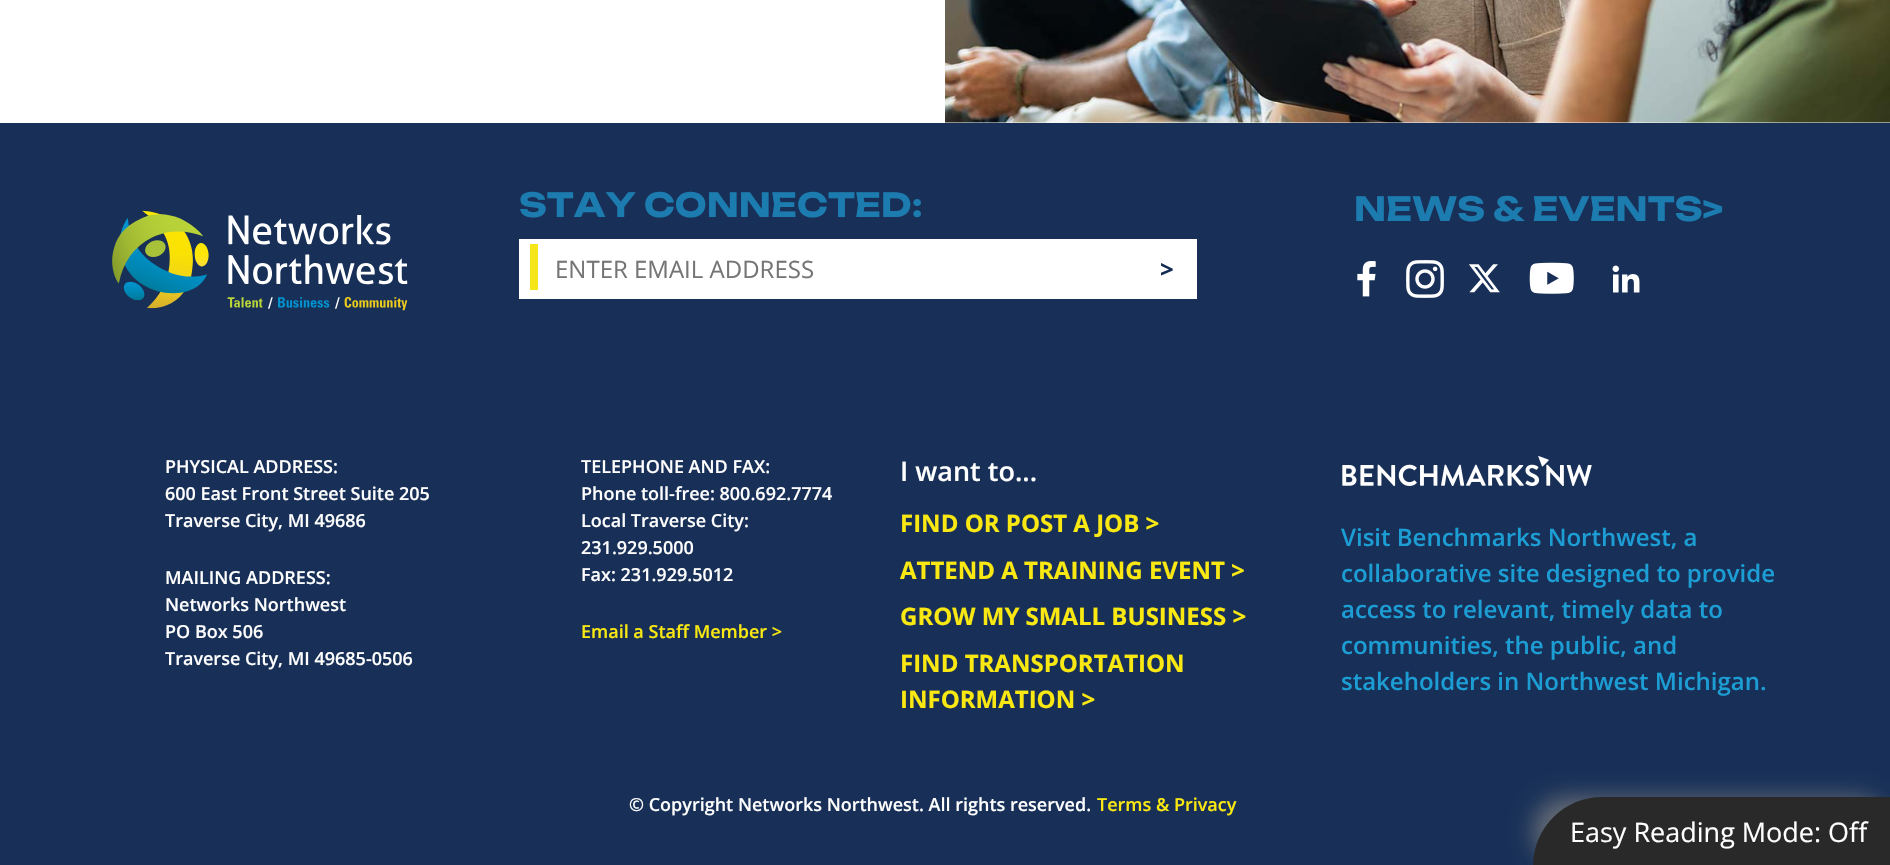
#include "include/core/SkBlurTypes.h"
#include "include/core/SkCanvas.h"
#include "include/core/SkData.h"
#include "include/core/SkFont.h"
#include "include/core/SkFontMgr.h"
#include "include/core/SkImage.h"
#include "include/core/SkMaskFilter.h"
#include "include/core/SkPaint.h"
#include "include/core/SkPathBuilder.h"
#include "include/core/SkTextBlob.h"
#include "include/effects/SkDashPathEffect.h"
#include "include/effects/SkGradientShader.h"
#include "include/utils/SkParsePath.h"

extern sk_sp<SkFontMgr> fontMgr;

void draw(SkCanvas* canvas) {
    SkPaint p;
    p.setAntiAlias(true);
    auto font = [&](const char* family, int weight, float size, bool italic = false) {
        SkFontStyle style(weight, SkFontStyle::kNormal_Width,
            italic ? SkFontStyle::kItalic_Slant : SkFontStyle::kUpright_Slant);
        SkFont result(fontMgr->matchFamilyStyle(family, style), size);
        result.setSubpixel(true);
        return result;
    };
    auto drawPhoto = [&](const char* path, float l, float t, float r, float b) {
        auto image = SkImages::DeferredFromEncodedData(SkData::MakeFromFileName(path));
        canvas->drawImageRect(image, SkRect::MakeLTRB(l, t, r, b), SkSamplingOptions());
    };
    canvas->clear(0xFFFFFFFF);
    drawPhoto("media/1.png", 945, 0, 1890, 123);
    p.setColor(0xFF183057);
    canvas->drawRect(SkRect::MakeLTRB(0, 123, 1890, 865), p);
    drawPhoto("media/2.png", 112, 210, 408, 311);
    auto font1 = font("Unbounded", 700, 33);
    p.setColor(0xFF1C7BAF);
    canvas->drawString("STAY CONNECTED:", 519, 217, font1, p);
    p.setColor(0xFFFFFFFF);
    canvas->drawRect(SkRect::MakeLTRB(519, 239, 1197, 299), p);
    p.setColor(0xFFF6E519);
    canvas->drawRect(SkRect::MakeLTRB(530, 244, 538, 290), p);
    auto font2 = font("Open Sans", 400, 24);
    p.setColor(0xFF757575);
    canvas->drawString("ENTER EMAIL ADDRESS", 555, 278, font2, p);
    auto font3 = font("Open Sans", 700, 24);
    p.setColor(0xFF142B53);
    canvas->drawString(">", 1160, 278, font3, p);
    p.setColor(0xFF1C7BAF);
    canvas->drawString("NEWS & EVENTS>", 1354, 221, font1, p);
    drawPhoto("media/3.png", 1357, 261, 1376, 297);
    drawPhoto("media/4.png", 1406, 260, 1444, 298);
    drawPhoto("media/5.png", 1469, 264, 1500, 293);
    drawPhoto("media/6.png", 1529, 262, 1574, 294);
    drawPhoto("media/7.png", 1612, 265, 1640, 293);
    auto font4 = font("Open Sans", 600, 18);
    p.setColor(0xFFFFFFFF);
    {
        const struct { const char* s; float x, y; } items[] = {
            {"PHYSICAL ADDRESS:", 165, 473},
            {"600 East Front Street Suite 205", 165, 500},
            {"Traverse City, MI 49686", 165, 527},
            {"MAILING ADDRESS:", 165, 584},
            {"Networks Northwest", 165, 611},
            {"PO Box 506", 165, 638},
            {"Traverse City, MI 49685-0506", 165, 665},
            {"TELEPHONE AND FAX:", 581, 473},
            {"Phone toll-free: 800.692.7774", 581, 500},
            {"Local Traverse City:", 581, 527},
            {"231.929.5000", 581, 554},
            {"Fax: 231.929.5012", 581, 581},
        };
        for (auto [s, x, y] : items) {
            canvas->drawString(s, x, y, font4, p);
        }
    }
    p.setColor(0xFFF9E812);
    canvas->drawString("Email a Staff Member >", 581, 638, font4, p);
    auto font5 = font("Open Sans", 600, 27);
    p.setColor(0xFFFFFFFF);
    canvas->drawString("I want to...", 900, 481, font5, p);
    p.setColor(0xFFF9E812);
    {
        const struct { const char* s; float x, y; } items[] = {
            {"FIND OR POST A JOB >", 900, 532},
            {"ATTEND A TRAINING EVENT >", 900, 579},
            {"GROW MY SMALL BUSINESS >", 900, 625},
            {"FIND TRANSPORTATION", 900, 672},
            {"INFORMATION >", 900, 708},
        };
        for (auto [s, x, y] : items) {
            canvas->drawString(s, x, y, font3, p);
        }
    }
    drawPhoto("media/8.png", 1342, 456, 1592, 486);
    auto font6 = font("Open Sans", 600, 24);
    p.setColor(0xFF1C9DD4);
    {
        const struct { const char* s; float x, y; } items[] = {
            {"Visit Benchmarks Northwest, a", 1341, 546},
            {"collaborative site designed to provide", 1341, 582},
            {"access to relevant, timely data to", 1341, 618},
            {"communities, the public, and", 1341, 654},
            {"stakeholders in Northwest Michigan.", 1341, 690},
        };
        for (auto [s, x, y] : items) {
            canvas->drawString(s, x, y, font6, p);
        }
    }
    p.setColor(0xFFFFFFFF);
    canvas->drawString("© Copyright Networks Northwest. All rights reserved.", 629, 811, font4, p);
    p.setColor(0xFFF9E812);
    canvas->drawString("Terms & Privacy", 1097, 811, font4, p);
    p.setColor(0xBF7D7D7D);
    p.setMaskFilter(SkMaskFilter::MakeBlur(kNormal_SkBlurStyle, 11));
    canvas->drawRoundRect(SkRect::MakeLTRB(1533, 797, 1890, 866), 69, 69, p);
    p.setMaskFilter(nullptr);
    p.setColor(0xFF292929);
    canvas->drawPath(SkPathBuilder().moveTo(1602, 797).lineTo(1890, 797).lineTo(1890, 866).lineTo(1533, 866).cubicTo(1533, 828, 1564, 797, 1602, 797).close().detach(), p);
    auto font7 = font("Open Sans", 400, 27);
    p.setColor(0xFFFFFFFF);
    canvas->drawString("Easy Reading Mode: Off", 1570, 842, font7, p);
}
